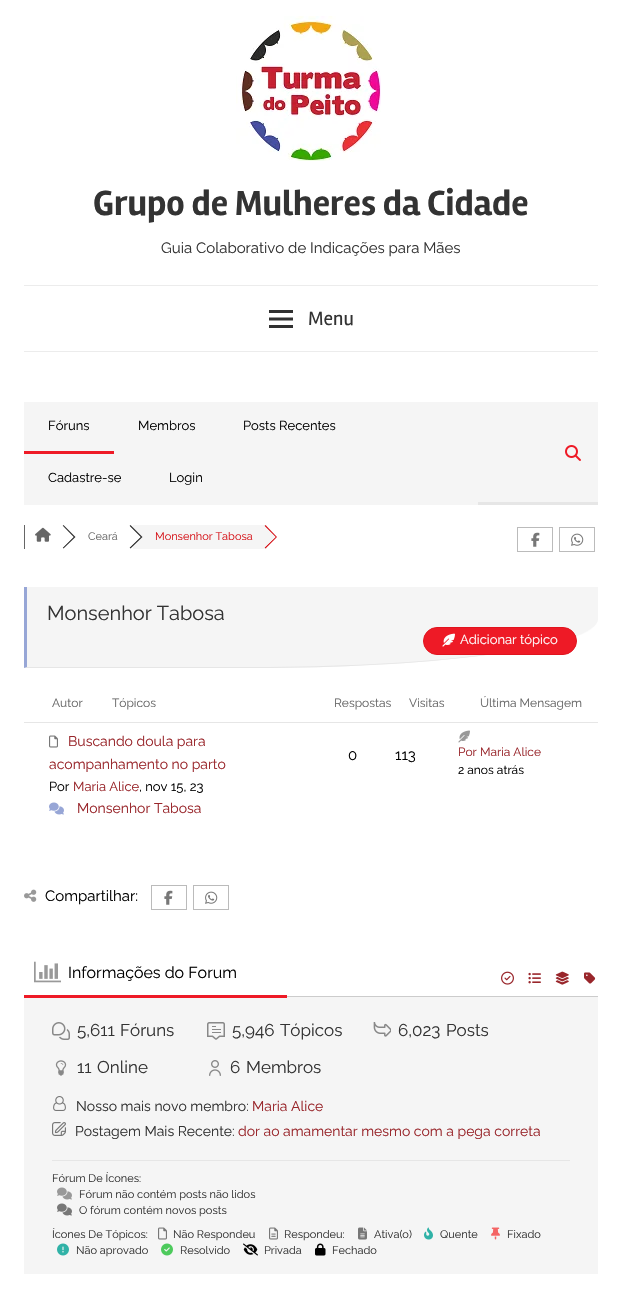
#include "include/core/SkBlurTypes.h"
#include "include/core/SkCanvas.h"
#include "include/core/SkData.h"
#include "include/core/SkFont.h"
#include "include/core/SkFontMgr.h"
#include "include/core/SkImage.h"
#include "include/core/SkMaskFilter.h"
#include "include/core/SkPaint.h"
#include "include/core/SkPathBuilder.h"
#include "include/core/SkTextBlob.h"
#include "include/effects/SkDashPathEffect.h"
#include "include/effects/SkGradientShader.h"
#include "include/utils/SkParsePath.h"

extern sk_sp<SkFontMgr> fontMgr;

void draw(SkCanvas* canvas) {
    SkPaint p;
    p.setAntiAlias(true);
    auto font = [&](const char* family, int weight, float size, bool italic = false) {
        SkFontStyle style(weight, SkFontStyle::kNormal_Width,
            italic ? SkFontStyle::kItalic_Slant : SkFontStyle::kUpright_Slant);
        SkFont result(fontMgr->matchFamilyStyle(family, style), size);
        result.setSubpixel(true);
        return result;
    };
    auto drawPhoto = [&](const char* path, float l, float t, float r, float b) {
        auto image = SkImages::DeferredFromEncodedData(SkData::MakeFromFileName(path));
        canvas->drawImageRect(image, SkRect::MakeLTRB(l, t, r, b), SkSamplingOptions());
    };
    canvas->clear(0xFFFFFFFF);
    p.setColor(0xFFECECEC);
    canvas->drawRect(SkRect::MakeLTRB(24, 351, 598, 352), p);
    drawPhoto("media/1.png", 236, 16, 381, 161);
    auto font1 = font("Rambla", 700, 36);
    p.setColor(0xFF333333);
    canvas->drawString("Grupo de Mulheres da Cidade", 93, 215, font1, p);
    auto font2 = font("Raleway", 400, 15);
    canvas->drawString("Guia Colaborativo de Indicações para Mães", 161, 253, font2, p);
    p.setColor(0xFFECECEC);
    canvas->drawRect(SkRect::MakeLTRB(24, 285, 598, 286), p);
    drawPhoto("media/2.png", 269, 310, 293, 328);
    auto font3 = font("Rambla", 400, 20);
    p.setColor(0xFF333333);
    canvas->drawString("Menu", 308, 325, font3, p);
    {
        const struct { float l, t, r, b; SkColor color; } items[] = {
            {478, 402, 598, 502, 0xFFF5F5F5},
            {478, 502, 598, 505, 0xFFE6E6E6},
            {24, 402, 478, 505, 0xFFF5F5F5},
            {24, 451, 114, 454, 0xFFEE1A26},
        };
        for (auto [l, t, r, b, color] : items) {
            p.setColor(color);
            canvas->drawRect(SkRect::MakeLTRB(l, t, r, b), p);
        }
    }
    auto font4 = font("Raleway", 400, 13);
    p.setColor(0xFF000000);
    {
        const struct { const char* s; float x, y; } items[] = {
            {"Fóruns", 48, 430},
            {"Membros", 138, 430},
            {"Posts Recentes", 243, 430},
            {"Cadastre-se", 48, 482},
            {"Login", 169, 482},
        };
        for (auto [s, x, y] : items) {
            canvas->drawString(s, x, y, font4, p);
        }
    }
    drawPhoto("media/3.png", 565, 445, 581, 461);
    p.setColor(0xFF666666);
    canvas->drawRect(SkRect::MakeLTRB(24, 525, 25, 549), p);
    drawPhoto("media/4.png", 35, 527, 51, 542);
    p.setColor(0xFF333333);
    canvas->drawPath(SkPathBuilder().moveTo(63.5f, 525).lineTo(62.5f, 526).lineTo(73.5f, 537).lineTo(62.5f, 547.5f).lineTo(63.5f, 548.5f).lineTo(75.5f, 537).close().detach(), p);
    p.setColor(0xFFFFFFFF);
    canvas->drawPath(SkPathBuilder().moveTo(62, 525).lineTo(73.5f, 537).lineTo(62, 548.5f).lineTo(50, 537).close().detach(), p);
    auto font5 = font("Raleway", 400, 11);
    p.setColor(0xFF666666);
    canvas->drawString("Ceará", 88, 540, font5, p);
    p.setColor(0xFFF5F5F5);
    canvas->drawRect(SkRect::MakeLTRB(133, 525, 267, 549), p);
    p.setColor(0xFF333333);
    canvas->drawPath(SkPathBuilder().moveTo(130.5f, 525).lineTo(129.5f, 526).lineTo(140.5f, 537).lineTo(129.5f, 547.5f).lineTo(130.5f, 548.5f).lineTo(142.5f, 537).close().detach(), p);
    p.setColor(0xFFFFFFFF);
    canvas->drawPath(SkPathBuilder().moveTo(128.5f, 525).lineTo(140.5f, 537).lineTo(128.5f, 548.5f).lineTo(116.5f, 537).close().detach(), p);
    p.setColor(0xFFD61319);
    canvas->drawString("Monsenhor Tabosa", 155, 540, font5, p);
    canvas->drawPath(SkPathBuilder().moveTo(265.5f, 525).lineTo(264.5f, 526).lineTo(275.5f, 537).lineTo(264.5f, 547.5f).lineTo(265.5f, 548.5f).lineTo(277, 537).close().detach(), p);
    p.setColor(0xFFF5F5F5);
    canvas->drawPath(SkPathBuilder().moveTo(263.5f, 525).lineTo(275.5f, 537).lineTo(263.5f, 548.5f).lineTo(251.5f, 537).close().detach(), p);
    p.setStyle(SkPaint::kStroke_Style);
    p.setStrokeWidth(1);
    p.setColor(0xFFBBBBBB);
    canvas->drawRect(SkRect::MakeLTRB(517.5f, 527.5f, 552.5f, 551.5f), p);
    drawPhoto("media/5.png", 531, 532, 540, 547);
    canvas->drawRect(SkRect::MakeLTRB(559.5f, 527.5f, 594.5f, 551.5f), p);
    drawPhoto("media/6.png", 571, 533, 584, 546);
    p.setStyle(SkPaint::kFill_Style);
    p.setColor(0xFFF5F5F5);
    canvas->drawPath(SkPathBuilder().moveTo(24, 587).lineTo(598, 587).lineTo(598, 619).cubicTo(598, 646, 444, 668, 254, 668).lineTo(24, 668).close().detach(), p);
    p.setColor(0xFFE6E6E6);
    canvas->drawPath(SkPathBuilder().moveTo(27, 667).lineTo(254, 667).cubicTo(424, 667, 564, 650, 593, 628).cubicTo(565, 650, 424, 668, 254, 668).lineTo(24, 668).close().detach(), p);
    p.setColor(0xFF97A6D6);
    canvas->drawPath(SkPathBuilder().moveTo(24, 587).lineTo(27, 587).lineTo(27, 667).lineTo(24, 668).close().detach(), p);
    auto font6 = font("Raleway", 400, 20);
    p.setColor(0xFF333333);
    canvas->drawString("Monsenhor Tabosa", 47, 620, font6, p);
    p.setColor(0xFFEE1A26);
    canvas->drawRoundRect(SkRect::MakeLTRB(423.5f, 627.5f, 576.5f, 654.5f), 13.5f, 13.5f, p);
    p.setStyle(SkPaint::kStroke_Style);
    p.setColor(0xFFE0141E);
    canvas->drawRoundRect(SkRect::MakeLTRB(423.5f, 627.5f, 576.5f, 654.5f), 13.5f, 13.5f, p);
    drawPhoto("media/7.png", 442, 633, 455, 647);
    p.setStyle(SkPaint::kFill_Style);
    p.setColor(0xFFFFFFFF);
    canvas->drawString("Adicionar tópico", 460, 644, font4, p);
    p.setColor(0xFFE6E6E6);
    canvas->drawRect(SkRect::MakeLTRB(24, 722, 598, 723), p);
    auto font7 = font("Raleway", 400, 12);
    p.setColor(0xFF666666);
    {
        const struct { const char* s; float x, y; } items[] = {
            {"Autor", 52, 707},
            {"Tópicos", 112, 707},
            {"Respostas", 334, 707},
            {"Visitas", 409, 707},
            {"Última Mensagem", 480, 707},
        };
        for (auto [s, x, y] : items) {
            canvas->drawString(s, x, y, font7, p);
        }
    }
    drawPhoto("media/8.png", 49, 735, 58, 748);
    auto font8 = font("Raleway", 400, 14);
    p.setColor(0xFF99262B);
    canvas->drawString("Buscando doula para", 68, 746, font8, p);
    canvas->drawString("acompanhamento no parto", 49, 769, font8, p);
    p.setColor(0xFF000000);
    canvas->drawString("Por", 49, 791, font4, p);
    p.setColor(0xFF99262B);
    canvas->drawString("Maria Alice", 73, 791, font4, p);
    p.setColor(0xFF000000);
    canvas->drawString(", nov 15, 23", 139, 791, font4, p);
    drawPhoto("media/9.png", 49, 802, 64, 815);
    p.setColor(0xFF99262B);
    canvas->drawString("Monsenhor Tabosa", 77, 813, font8, p);
    p.setColor(0xFF000000);
    canvas->drawString("0", 348, 760, font2, p);
    canvas->drawString("113", 395, 760, font2, p);
    drawPhoto("media/10.png", 458, 730, 470, 743);
    p.setColor(0xFF99262B);
    canvas->drawString("Por Maria Alice", 458, 756, font7, p);
    p.setColor(0xFF000000);
    canvas->drawString("2 anos atrás", 458, 774, font7, p);
    drawPhoto("media/11.png", 24, 889, 37, 902);
    canvas->drawString("Compartilhar:", 45, 901, font2, p);
    p.setStyle(SkPaint::kStroke_Style);
    p.setColor(0xFFBBBBBB);
    canvas->drawRect(SkRect::MakeLTRB(151.5f, 885.5f, 186.5f, 909.5f), p);
    drawPhoto("media/5.png", 164, 890, 173, 905);
    canvas->drawRect(SkRect::MakeLTRB(193.5f, 885.5f, 228.5f, 909.5f), p);
    drawPhoto("media/6.png", 205, 891, 218, 904);
    p.setStyle(SkPaint::kFill_Style);
    {
        const struct { float l, t, r, b; SkColor color; } items[] = {
            {287, 996, 598, 997, 0xFFCCCCCC},
            {24, 997, 598, 1274, 0xFFF5F5F5},
            {24, 995, 287, 998, 0xFFEE1A26},
        };
        for (auto [l, t, r, b, color] : items) {
            p.setColor(color);
            canvas->drawRect(SkRect::MakeLTRB(l, t, r, b), p);
        }
    }
    drawPhoto("media/12.png", 34, 961, 61, 983);
    auto font9 = font("Raleway", 400, 16);
    p.setColor(0xFF000000);
    canvas->drawString("Informações do Forum", 68, 978, font9, p);
    drawPhoto("media/13.png", 501, 971, 514, 985);
    drawPhoto("media/14.png", 528, 972, 541, 984);
    drawPhoto("media/15.png", 555, 971, 569, 985);
    drawPhoto("media/16.png", 584, 972, 596, 984);
    drawPhoto("media/17.png", 52, 1022, 70, 1040);
    auto font10 = font("Raleway", 400, 17);
    p.setColor(0xFF333333);
    canvas->drawString("5,611", 77, 1036, font10, p);
    canvas->drawString("Fóruns", 120, 1036, font10, p);
    drawPhoto("media/18.png", 207, 1022, 225, 1040);
    canvas->drawString("5,946", 232, 1036, font10, p);
    canvas->drawString("Tópicos", 280, 1036, font10, p);
    drawPhoto("media/19.png", 373, 1022, 391, 1037);
    canvas->drawString("6,023", 398, 1036, font10, p);
    canvas->drawString("Posts", 446, 1036, font10, p);
    drawPhoto("media/20.png", 55, 1060, 67, 1076);
    canvas->drawString("11", 77, 1073, font10, p);
    canvas->drawString("Online", 97, 1073, font10, p);
    drawPhoto("media/21.png", 209, 1060, 221, 1076);
    canvas->drawString("6", 230, 1073, font10, p);
    canvas->drawString("Membros", 246, 1073, font10, p);
    drawPhoto("media/22.png", 53, 1096, 66, 1111);
    canvas->drawString("Nosso mais novo membro:", 76, 1111, font8, p);
    p.setColor(0xFF99262B);
    canvas->drawString("Maria Alice", 252, 1111, font8, p);
    drawPhoto("media/23.png", 52, 1122, 66, 1136);
    p.setColor(0xFF333333);
    canvas->drawString("Postagem Mais Recente:", 75, 1136, font8, p);
    p.setColor(0xFF99262B);
    canvas->drawString("dor ao amamentar mesmo com a pega correta", 238, 1136, font8, p);
    p.setColor(0xFFE6E6E6);
    canvas->drawRect(SkRect::MakeLTRB(52, 1160, 570, 1161), p);
    p.setColor(0xFF333333);
    canvas->drawString("Fórum De Ícones:", 52, 1182, font5, p);
    drawPhoto("media/24.png", 57, 1187, 72, 1200);
    canvas->drawString("Fórum não contém posts não lidos", 79, 1198, font5, p);
    drawPhoto("media/25.png", 57, 1203, 72, 1216);
    canvas->drawString("O fórum contém novos posts", 79, 1214, font5, p);
    canvas->drawString("Ícones De Tópicos:", 52, 1238, font5, p);
    drawPhoto("media/26.png", 158, 1227, 167, 1240);
    canvas->drawString("Não Respondeu", 173, 1238, font5, p);
    drawPhoto("media/27.png", 269, 1227, 278, 1240);
    canvas->drawString("Respondeu:", 284, 1238, font5, p);
    drawPhoto("media/28.png", 358, 1227, 367, 1240);
    canvas->drawString("Ativa(o)", 374, 1238, font5, p);
    drawPhoto("media/29.png", 424, 1227, 433, 1240);
    canvas->drawString("Quente", 440, 1238, font5, p);
    drawPhoto("media/30.png", 491, 1227, 500, 1240);
    canvas->drawString("Fixado", 507, 1238, font5, p);
    drawPhoto("media/31.png", 57, 1243, 69, 1256);
    canvas->drawString("Não aprovado", 76, 1254, font5, p);
    drawPhoto("media/32.png", 161, 1243, 173, 1256);
    canvas->drawString("Resolvido", 180, 1254, font5, p);
    drawPhoto("media/33.png", 243, 1243, 258, 1256);
    canvas->drawString("Privada", 264, 1254, font5, p);
    drawPhoto("media/34.png", 315, 1243, 326, 1256);
    canvas->drawString("Fechado", 332, 1254, font5, p);
}
